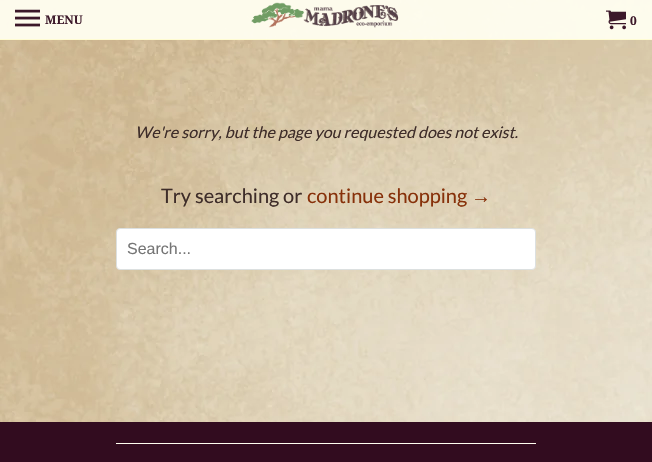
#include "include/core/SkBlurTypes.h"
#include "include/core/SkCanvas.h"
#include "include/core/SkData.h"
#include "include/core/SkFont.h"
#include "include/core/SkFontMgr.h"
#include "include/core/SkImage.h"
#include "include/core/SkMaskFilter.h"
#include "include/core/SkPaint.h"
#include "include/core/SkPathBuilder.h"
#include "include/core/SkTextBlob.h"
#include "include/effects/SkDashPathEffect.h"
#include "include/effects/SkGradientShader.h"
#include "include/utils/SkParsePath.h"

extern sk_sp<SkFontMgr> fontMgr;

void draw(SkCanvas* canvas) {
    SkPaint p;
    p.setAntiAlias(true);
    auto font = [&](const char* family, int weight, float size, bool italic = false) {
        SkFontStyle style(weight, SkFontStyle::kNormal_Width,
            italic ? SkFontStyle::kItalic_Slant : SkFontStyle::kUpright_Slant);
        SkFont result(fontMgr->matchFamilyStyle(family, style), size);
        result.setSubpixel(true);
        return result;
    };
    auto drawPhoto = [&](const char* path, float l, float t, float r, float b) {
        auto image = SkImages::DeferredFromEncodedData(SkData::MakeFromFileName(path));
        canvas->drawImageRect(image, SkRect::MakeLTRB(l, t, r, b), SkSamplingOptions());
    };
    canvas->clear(0xFFFFFFFF);
    drawPhoto("media/1.png", 0, 0, 652, 422);
    p.setColor(0xF2FFFEF0);
    canvas->drawRect(SkRect::MakeLTRB(0, 0, 652, 40), p);
    p.setColor(0xF2FFFCD1);
    canvas->drawRect(SkRect::MakeLTRB(0, 39, 652, 40), p);
    drawPhoto("media/2.png", 15, 9, 40, 27);
    auto font1 = font("Droid Serif", 700, 12);
    p.setColor(0xFF3C1829);
    canvas->drawString("MENU", 45, 24, font1, p);
    drawPhoto("media/3.png", 251, 2, 399, 28);
    drawPhoto("media/4.png", 606, 10, 626, 30);
    canvas->drawString("0", 630, 25, font1, p);
    auto font2 = font("Lato", 400, 16, true);
    p.setColor(0xFF3E2D29);
    canvas->drawString("We're sorry, but the page you requested does not exist.", 135, 138, font2, p);
    auto font3 = font("Lato", 400, 20);
    canvas->drawString("Try searching or", 161, 203, font3, p);
    p.setColor(0xFF87310A);
    canvas->drawString("continue shopping", 307, 203, font3, p);
    auto font4 = font("Liberation Serif", 400, 20);
    canvas->drawString("→", 471, 203, font4, p);
    p.setColor(0xFFFFFFFF);
    canvas->drawRoundRect(SkRect::MakeLTRB(116.5f, 228.5f, 535.5f, 269.5f), 3.5f, 3.5f, p);
    p.setStyle(SkPaint::kStroke_Style);
    p.setStrokeWidth(1);
    p.setColor(0xFFDCE0E0);
    canvas->drawRoundRect(SkRect::MakeLTRB(116.5f, 228.5f, 535.5f, 269.5f), 3.5f, 3.5f, p);
    auto font5 = font("Liberation Sans", 400, 16);
    p.setStyle(SkPaint::kFill_Style);
    p.setColor(0xFF757575);
    canvas->drawString("Search...", 127, 254, font5, p);
    p.setColor(0xFF320C1F);
    canvas->drawRect(SkRect::MakeLTRB(0, 422, 652, 462), p);
    p.setColor(0xFFFFFEF0);
    canvas->drawRect(SkRect::MakeLTRB(116, 443, 536, 444), p);
}
